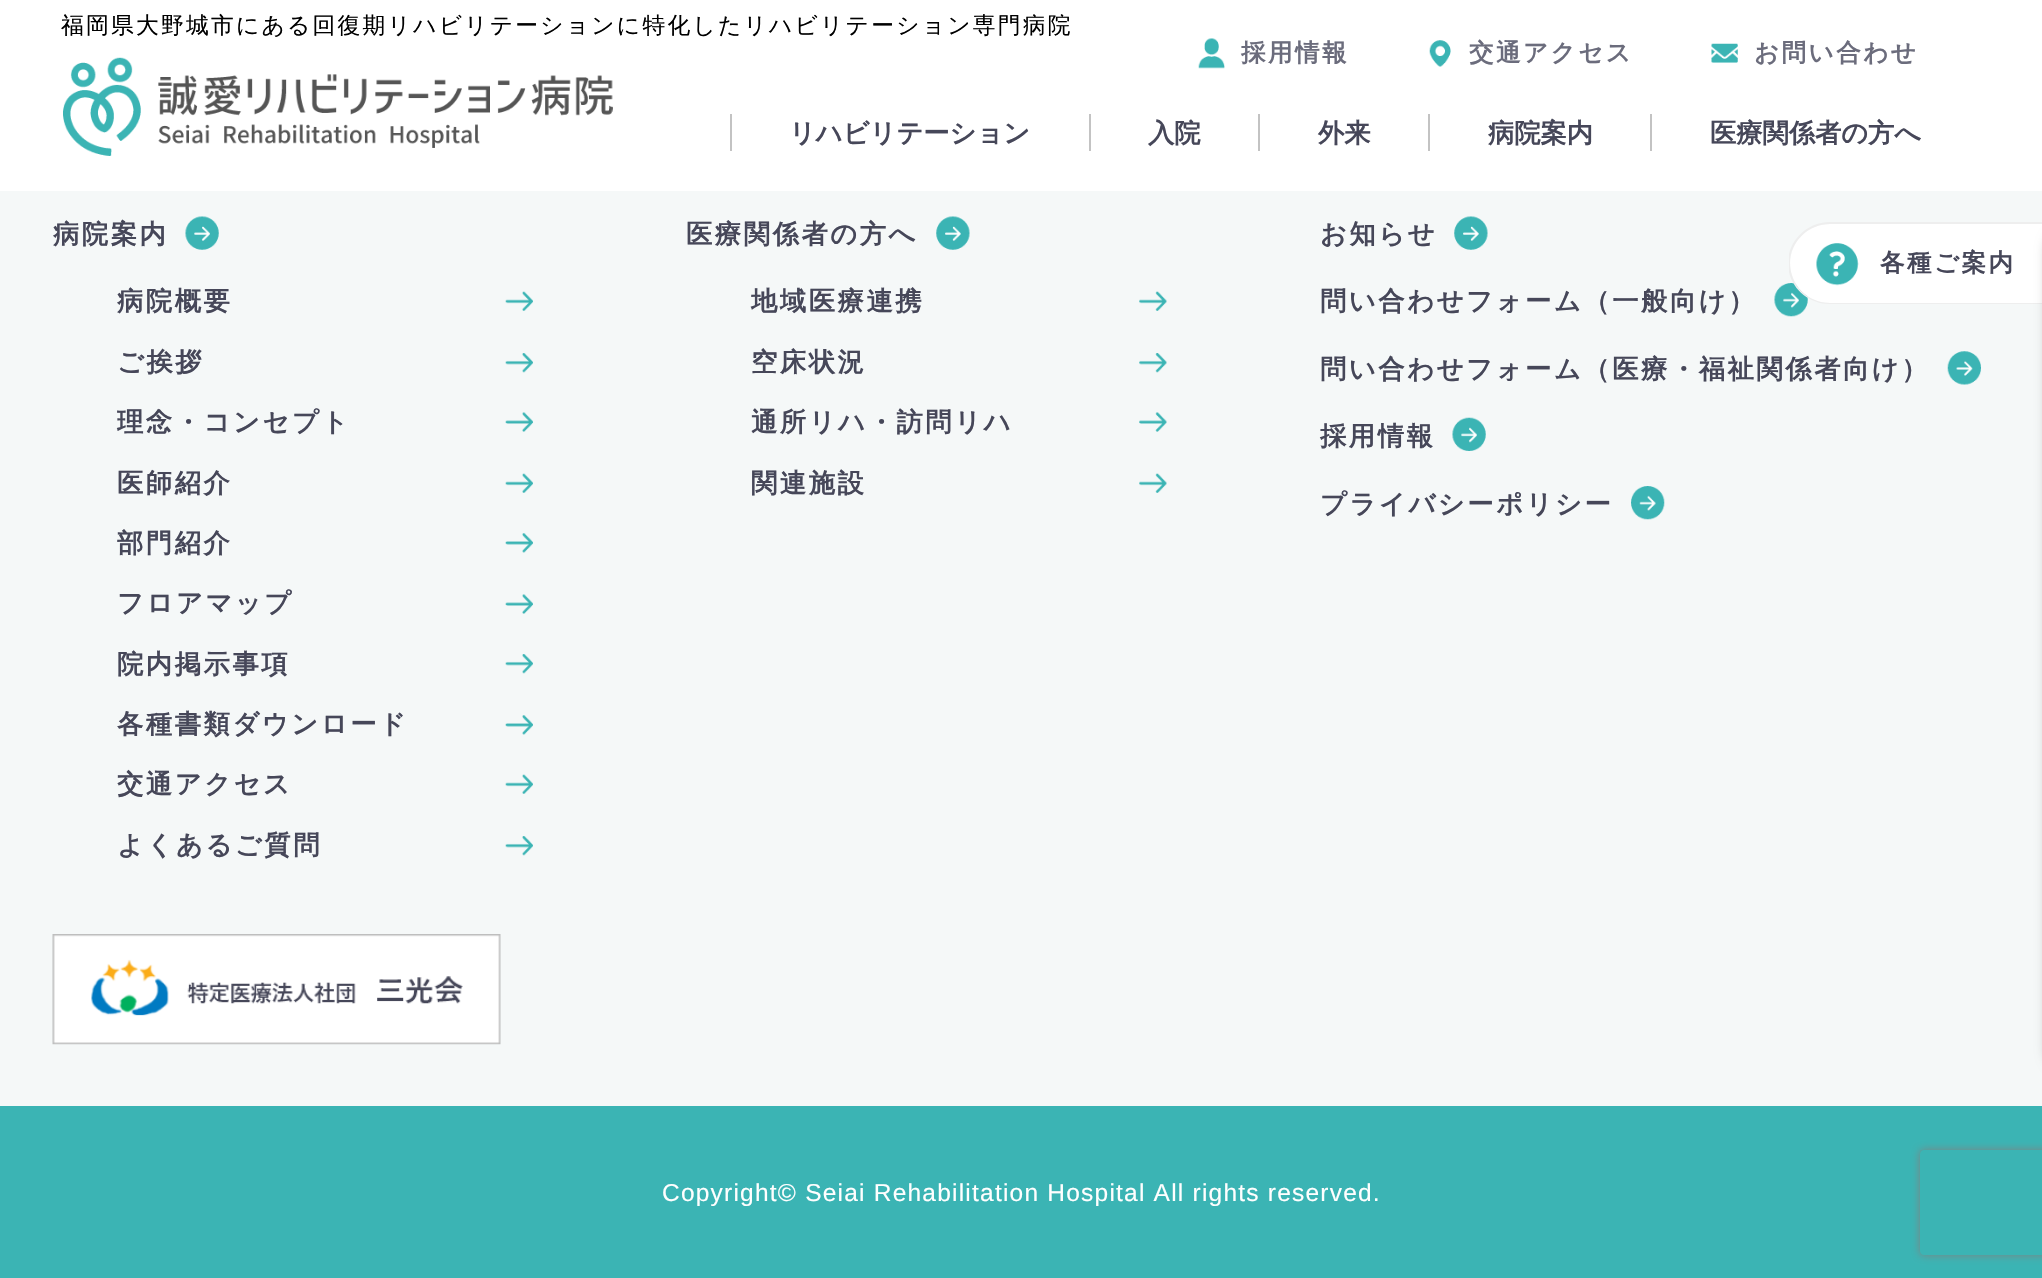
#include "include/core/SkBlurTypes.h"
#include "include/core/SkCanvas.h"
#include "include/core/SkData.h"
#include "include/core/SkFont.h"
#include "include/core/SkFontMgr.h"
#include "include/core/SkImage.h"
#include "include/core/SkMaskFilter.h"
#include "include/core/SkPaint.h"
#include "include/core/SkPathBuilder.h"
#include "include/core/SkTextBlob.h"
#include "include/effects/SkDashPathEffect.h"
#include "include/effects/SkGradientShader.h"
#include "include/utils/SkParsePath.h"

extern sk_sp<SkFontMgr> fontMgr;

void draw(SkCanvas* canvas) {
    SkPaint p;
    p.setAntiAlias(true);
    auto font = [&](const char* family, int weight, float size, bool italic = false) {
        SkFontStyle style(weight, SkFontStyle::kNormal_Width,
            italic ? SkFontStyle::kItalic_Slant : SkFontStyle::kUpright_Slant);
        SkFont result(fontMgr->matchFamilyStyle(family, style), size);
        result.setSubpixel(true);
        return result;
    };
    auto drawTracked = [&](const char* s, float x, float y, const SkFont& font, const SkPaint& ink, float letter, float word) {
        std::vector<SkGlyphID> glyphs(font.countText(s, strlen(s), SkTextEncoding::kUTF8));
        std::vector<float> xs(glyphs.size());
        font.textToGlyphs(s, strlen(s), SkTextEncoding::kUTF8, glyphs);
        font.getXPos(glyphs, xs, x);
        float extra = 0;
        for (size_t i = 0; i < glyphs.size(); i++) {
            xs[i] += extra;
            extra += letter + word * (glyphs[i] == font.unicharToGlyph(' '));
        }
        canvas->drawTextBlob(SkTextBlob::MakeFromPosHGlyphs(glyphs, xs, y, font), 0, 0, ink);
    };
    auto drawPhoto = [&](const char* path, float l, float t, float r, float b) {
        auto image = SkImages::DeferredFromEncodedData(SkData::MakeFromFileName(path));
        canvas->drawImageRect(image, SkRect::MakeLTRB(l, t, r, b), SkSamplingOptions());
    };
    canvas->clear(0xFFF5F8F8);
    p.setColor(0xFFFFFFFF);
    canvas->drawRect(SkRect::MakeLTRB(0, 0, 2042, 191), p);
    auto font1 = font("WenQuanYi Zen Hei", 500, 22.75f);
    p.setColor(0xFF000000);
    drawTracked("福岡県大野城市にある回復期リハビリテーションに特化したリハビリテーション専門病院", 61, 33, font1, p, 2.25f, 0);
    drawPhoto("media/1.png", 63, 57, 613, 156);
    drawPhoto("media/2.png", 1198, 38, 1225, 69);
    auto font2 = font("WenQuanYi Zen Hei", 700, 24.5f);
    p.setColor(0xFF6B6C7C);
    drawTracked("採用情報", 1241, 61, font2, p, 2.5f, 0);
    drawPhoto("media/3.png", 1429, 40, 1451, 67);
    drawTracked("交通アクセス", 1469, 61, font2, p, 2.5f, 0);
    drawPhoto("media/4.png", 1711, 43, 1738, 63);
    drawTracked("お問い合わせ", 1754, 61, font2, p, 2.5f, 0);
    p.setColor(0xFFC3C3C3);
    canvas->drawRect(SkRect::MakeLTRB(730, 114, 732, 151), p);
    auto font3 = font("WenQuanYi Zen Hei", 700, 26.25f);
    p.setColor(0xFF464759);
    canvas->drawString("リハビリテーション", 789, 142, font3, p);
    p.setColor(0xFFC3C3C3);
    canvas->drawRect(SkRect::MakeLTRB(1089, 114, 1091, 151), p);
    p.setColor(0xFF464759);
    canvas->drawString("入院", 1148, 142, font3, p);
    p.setColor(0xFFC3C3C3);
    canvas->drawRect(SkRect::MakeLTRB(1258, 114, 1260, 151), p);
    p.setColor(0xFF464759);
    canvas->drawString("外来", 1318, 142, font3, p);
    p.setColor(0xFFC3C3C3);
    canvas->drawRect(SkRect::MakeLTRB(1428, 114, 1430, 151), p);
    p.setColor(0xFF464759);
    canvas->drawString("病院案内", 1488, 142, font3, p);
    p.setColor(0xFFC3C3C3);
    canvas->drawRect(SkRect::MakeLTRB(1650, 114, 1652, 151), p);
    p.setColor(0xFF464759);
    canvas->drawString("医療関係者の方へ", 1710, 142, font3, p);
    drawTracked("病院案内", 53, 243, font3, p, 2.6f, 0);
    drawPhoto("media/5.png", 185, 216, 219, 250);
    drawPhoto("media/6.png", 505, 291, 533, 311);
    drawTracked("病院概要", 117, 310, font3, p, 2.6f, 0);
    drawPhoto("media/7.png", 505, 353, 533, 373);
    drawTracked("ご挨拶", 117, 371, font3, p, 2.6f, 0);
    drawPhoto("media/8.png", 505, 412, 533, 432);
    drawTracked("理念・コンセプト", 117, 431, font3, p, 2.6f, 0);
    drawPhoto("media/6.png", 505, 473, 533, 493);
    drawTracked("医師紹介", 117, 492, font3, p, 2.6f, 0);
    drawPhoto("media/9.png", 505, 533, 533, 553);
    drawTracked("部門紹介", 117, 552, font3, p, 2.6f, 0);
    drawPhoto("media/10.png", 505, 594, 533, 614);
    drawTracked("フロアマップ", 117, 612, font3, p, 2.6f, 0);
    drawPhoto("media/7.png", 505, 654, 533, 674);
    drawTracked("院内掲示事項", 117, 673, font3, p, 2.6f, 0);
    drawPhoto("media/9.png", 505, 715, 533, 735);
    drawTracked("各種書類ダウンロード", 117, 733, font3, p, 2.6f, 0);
    drawPhoto("media/6.png", 505, 774, 533, 794);
    drawTracked("交通アクセス", 117, 793, font3, p, 2.6f, 0);
    drawPhoto("media/7.png", 505, 836, 533, 856);
    drawTracked("よくあるご質問", 117, 854, font3, p, 2.6f, 0);
    drawTracked("医療関係者の方へ", 686, 243, font3, p, 2.6f, 0);
    drawPhoto("media/11.png", 936, 216, 970, 250);
    drawPhoto("media/12.png", 1139, 291, 1167, 311);
    drawTracked("地域医療連携", 751, 310, font3, p, 2.6f, 0);
    drawPhoto("media/13.png", 1139, 353, 1167, 373);
    drawTracked("空床状況", 751, 371, font3, p, 2.6f, 0);
    drawPhoto("media/14.png", 1139, 412, 1167, 432);
    drawTracked("通所リハ・訪問リハ", 751, 431, font3, p, 2.6f, 0);
    drawPhoto("media/12.png", 1139, 473, 1167, 493);
    drawTracked("関連施設", 751, 492, font3, p, 2.6f, 0);
    drawTracked("お知らせ", 1320, 243, font3, p, 2.6f, 0);
    drawPhoto("media/11.png", 1454, 216, 1488, 250);
    drawTracked("問い合わせフォーム（一般向け）", 1320, 310, font3, p, 2.6f, 0);
    drawPhoto("media/15.png", 1774, 283, 1808, 317);
    drawTracked("問い合わせフォーム（医療・福祉関係者向け）", 1320, 378, font3, p, 2.6f, 0);
    drawPhoto("media/16.png", 1947, 351, 1981, 385);
    drawTracked("採用情報", 1320, 445, font3, p, 2.6f, 0);
    drawPhoto("media/17.png", 1452, 417, 1486, 451);
    drawTracked("プライバシーポリシー", 1320, 513, font3, p, 2.6f, 0);
    drawPhoto("media/18.png", 1631, 486, 1665, 520);
    drawPhoto("media/19.png", 52, 934, 501, 1045);
    p.setColor(0xFF3BB4B4);
    canvas->drawRect(SkRect::MakeLTRB(0, 1106, 2042, 1278), p);
    auto font4 = font("Liberation Sans", 400, 24.5f);
    p.setColor(0xFFFFFFFF);
    drawTracked("Copyright© Seiai Rehabilitation Hospital All rights reserved.", 662, 1201, font4, p, 1.22f, 0);
    canvas->drawPath(SkPathBuilder().moveTo(1829.5f, 224).lineTo(2042, 224).lineTo(2042, 303).lineTo(1829.5f, 303).cubicTo(1807.5f, 303, 1790, 285.5f, 1790, 263.5f).cubicTo(1790, 241.5f, 1807.5f, 224, 1829.5f, 224).close().detach(), p);
    drawPhoto("media/20.png", 1816, 243, 1859, 286);
    canvas->save();
    canvas->clipRect(SkRect::MakeLTRB(1789, 222, 2042, 305));
    p.setColor(0xFFEEEEEE);
    canvas->drawPath(SkPathBuilder(SkPathFillType::kEvenOdd).moveTo(1830, 222).lineTo(2042, 222).lineTo(2042, 304).lineTo(1830, 304).cubicTo(1807, 304, 1788, 286, 1788, 263).cubicTo(1788, 241, 1807, 222, 1830, 222).close().moveTo(1830, 224).lineTo(2042, 224).lineTo(2042, 303).lineTo(1830, 303).cubicTo(1808, 303, 1790, 285, 1790, 263).cubicTo(1790, 242, 1808, 224, 1830, 224).close().detach(), p);
    canvas->restore();
    p.setColor(0xFF464759);
    drawTracked("各種ご案内", 1880, 271, font2, p, 2.5f, 0);
    p.setColor(0x29000000);
    p.setMaskFilter(SkMaskFilter::MakeBlur(kNormal_SkBlurStyle, 5));
    canvas->drawRoundRect(SkRect::MakeLTRB(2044, 224, 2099, 1075), 42, 42, p);
    p.setMaskFilter(nullptr);
    canvas->save();
    canvas->clipPath(SkPathBuilder(SkPathFillType::kEvenOdd).moveTo(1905, 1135).lineTo(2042, 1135).lineTo(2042, 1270).lineTo(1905, 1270).close().moveTo(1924, 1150).lineTo(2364, 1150).cubicTo(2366, 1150, 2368, 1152, 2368, 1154).lineTo(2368, 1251).cubicTo(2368, 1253, 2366, 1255, 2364, 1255).lineTo(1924, 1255).cubicTo(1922, 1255, 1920, 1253, 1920, 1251).lineTo(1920, 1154).cubicTo(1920, 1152, 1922, 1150, 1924, 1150).close().detach(), true);
    p.setColor(0xFF808080);
    p.setMaskFilter(SkMaskFilter::MakeBlur(kNormal_SkBlurStyle, 4.5f));
    canvas->drawRoundRect(SkRect::MakeLTRB(1920, 1150, 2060, 1255), 4, 4, p);
    p.setMaskFilter(nullptr);
    canvas->restore();
}
